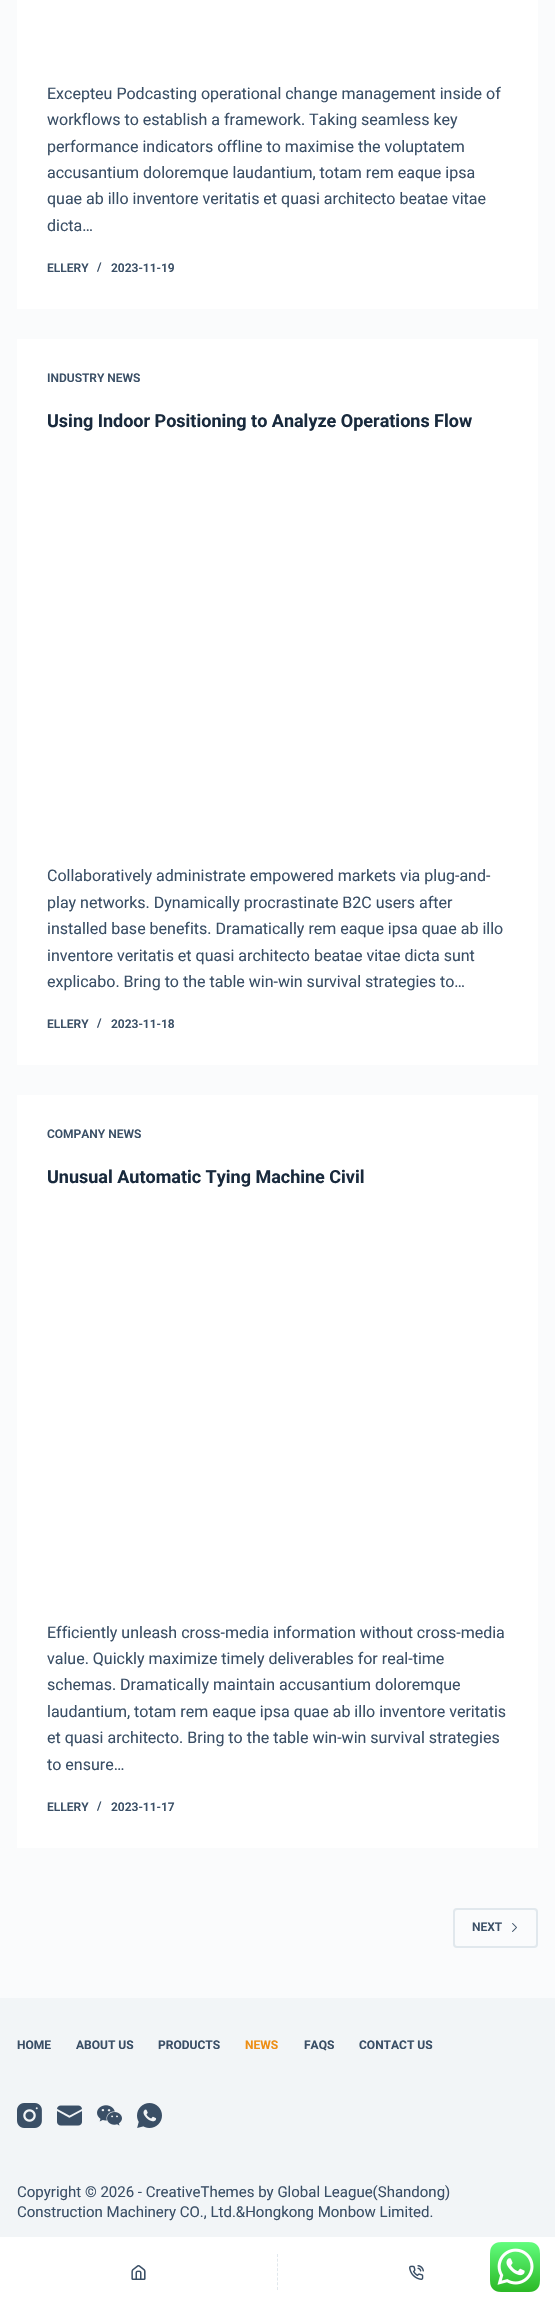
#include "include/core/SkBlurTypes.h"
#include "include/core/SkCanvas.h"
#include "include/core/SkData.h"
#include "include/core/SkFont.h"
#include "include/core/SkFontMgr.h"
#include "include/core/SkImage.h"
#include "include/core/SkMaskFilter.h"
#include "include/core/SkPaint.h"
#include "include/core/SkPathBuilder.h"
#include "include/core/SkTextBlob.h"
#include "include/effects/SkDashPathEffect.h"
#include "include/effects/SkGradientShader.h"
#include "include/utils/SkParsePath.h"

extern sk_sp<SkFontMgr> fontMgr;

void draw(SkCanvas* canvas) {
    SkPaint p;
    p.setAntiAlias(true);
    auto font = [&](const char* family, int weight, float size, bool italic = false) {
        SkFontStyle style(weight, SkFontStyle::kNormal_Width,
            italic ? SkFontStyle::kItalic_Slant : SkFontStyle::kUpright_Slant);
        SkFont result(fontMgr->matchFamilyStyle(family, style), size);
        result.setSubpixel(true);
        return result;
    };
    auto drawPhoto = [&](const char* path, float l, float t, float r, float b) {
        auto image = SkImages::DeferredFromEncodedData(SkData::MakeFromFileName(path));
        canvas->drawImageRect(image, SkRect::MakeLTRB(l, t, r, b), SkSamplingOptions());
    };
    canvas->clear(0xFFFAFBFC);
    p.setColor(0xFFFFFFFF);
    canvas->drawRect(SkRect::MakeLTRB(17, 0, 538, 309), p);
    auto font1 = font("Roboto", 400, 16);
    p.setColor(0xFF3A4F66);
    {
        const struct { const char* s; float x, y; } items[] = {
            {"Excepteu Podcasting operational change management inside of", 47, 99},
            {"workflows to establish a framework. Taking seamless key", 47, 125},
            {"performance indicators offline to maximise the voluptatem", 47, 152},
            {"accusantium doloremque laudantium, totam rem eaque ipsa", 47, 178},
            {"quae ab illo inventore veritatis et quasi architecto beatae vitae", 47, 204},
            {"dicta…", 47, 231},
        };
        for (auto [s, x, y] : items) {
            canvas->drawString(s, x, y, font1, p);
        }
    }
    auto font2 = font("Roboto", 600, 12);
    {
        const struct { const char* s; float x, y; } items[] = {
            {"ELLERY", 47, 272},
            {"/", 97, 271},
            {"2023-11-19", 111, 272},
        };
        for (auto [s, x, y] : items) {
            canvas->drawString(s, x, y, font2, p);
        }
    }
    p.setColor(0xFFFFFFFF);
    canvas->drawRect(SkRect::MakeLTRB(17, 339, 538, 1065), p);
    p.setColor(0xFF3A4F66);
    canvas->drawString("INDUSTRY NEWS", 47, 382, font2, p);
    auto font3 = font("Roboto", 700, 18);
    p.setColor(0xFF192A3D);
    canvas->drawString("Using Indoor Positioning to Analyze Operations Flow", 47, 427, font3, p);
    p.setColor(0xFF3A4F66);
    {
        const struct { const char* s; float x, y; } items[] = {
            {"Collaboratively administrate empowered markets via plug-and-", 47, 881},
            {"play networks. Dynamically procrastinate B2C users after", 47, 908},
            {"installed base benefits. Dramatically rem eaque ipsa quae ab illo", 47, 934},
            {"inventore veritatis et quasi architecto beatae vitae dicta sunt", 47, 961},
            {"explicabo. Bring to the table win-win survival strategies to…", 47, 987},
        };
        for (auto [s, x, y] : items) {
            canvas->drawString(s, x, y, font1, p);
        }
    }
    {
        const struct { const char* s; float x, y; } items[] = {
            {"ELLERY", 47, 1028},
            {"/", 97, 1027},
            {"2023-11-18", 111, 1028},
        };
        for (auto [s, x, y] : items) {
            canvas->drawString(s, x, y, font2, p);
        }
    }
    p.setColor(0xFFFFFFFF);
    canvas->drawRect(SkRect::MakeLTRB(17, 1095, 538, 1848), p);
    p.setColor(0xFF3A4F66);
    canvas->drawString("COMPANY NEWS", 47, 1138, font2, p);
    p.setColor(0xFF192A3D);
    canvas->drawString("Unusual Automatic Tying Machine Civil", 47, 1183, font3, p);
    p.setColor(0xFF3A4F66);
    {
        const struct { const char* s; float x, y; } items[] = {
            {"Efficiently unleash cross-media information without cross-media", 47, 1638},
            {"value. Quickly maximize timely deliverables for real-time", 47, 1664},
            {"schemas. Dramatically maintain accusantium doloremque", 47, 1690},
            {"laudantium, totam rem eaque ipsa quae ab illo inventore veritatis", 47, 1717},
            {"et quasi architecto. Bring to the table win-win survival strategies", 47, 1743},
            {"to ensure…", 47, 1770},
        };
        for (auto [s, x, y] : items) {
            canvas->drawString(s, x, y, font1, p);
        }
    }
    {
        const struct { const char* s; float x, y; } items[] = {
            {"ELLERY", 47, 1811},
            {"/", 97, 1810},
            {"2023-11-17", 111, 1811},
        };
        for (auto [s, x, y] : items) {
            canvas->drawString(s, x, y, font2, p);
        }
    }
    p.setStyle(SkPaint::kStroke_Style);
    p.setStrokeWidth(2);
    p.setColor(0xFFE1E8ED);
    canvas->drawRoundRect(SkRect::MakeLTRB(454, 1909, 537, 1947), 3, 3, p);
    p.setStyle(SkPaint::kFill_Style);
    p.setColor(0xFF3A4F66);
    canvas->drawString("NEXT", 472, 1931, font2, p);
    drawPhoto("media/1.png", 512, 1923, 517, 1932);
    p.setColor(0xFFF2F5F7);
    canvas->drawRect(SkRect::MakeLTRB(0, 1998, 555, 2237), p);
    auto font4 = font("Roboto", 700, 12);
    p.setColor(0xFF3A4F66);
    {
        const struct { const char* s; float x, y; } items[] = {
            {"HOME", 17, 2049},
            {"ABOUT US", 76, 2049},
            {"PRODUCTS", 158, 2049},
        };
        for (auto [s, x, y] : items) {
            canvas->drawString(s, x, y, font4, p);
        }
    }
    p.setColor(0xFFED8F15);
    canvas->drawString("NEWS", 245, 2049, font4, p);
    p.setColor(0xFF3A4F66);
    canvas->drawString("FAQS", 304, 2049, font4, p);
    canvas->drawString("CONTACT US", 359, 2049, font4, p);
    drawPhoto("media/2.png", 17, 2103, 42, 2128);
    drawPhoto("media/3.png", 57, 2105, 82, 2126);
    drawPhoto("media/4.png", 97, 2105, 122, 2126);
    drawPhoto("media/5.png", 137, 2103, 162, 2128);
    auto font5 = font("Roboto", 400, 15);
    canvas->drawString("Copyright © 2026 - CreativeThemes by Global League(Shandong)", 17, 2197, font5, p);
    canvas->drawString("Construction Machinery CO., Ltd.&Hongkong Monbow Limited.", 17, 2217, font5, p);
    p.setColor(0xFFFFFFFF);
    canvas->drawRect(SkRect::MakeLTRB(0, 2237, 555, 2307), p);
    drawPhoto("media/6.png", 131, 2265, 146, 2280);
    p.setStyle(SkPaint::kStroke_Style);
    p.setStrokeWidth(1);
    p.setColor(0xFFE1E8ED);
    p.setPathEffect(SkDashPathEffect::Make({{3, 1.71f}}, 0));
    canvas->drawPath(SkPathBuilder().moveTo(277.5f, 2254).lineTo(277.5f, 2290).detach(), p);
    p.setPathEffect(nullptr);
    drawPhoto("media/7.png", 409, 2265, 424, 2280);
    drawPhoto("media/8.png", 490, 2242, 540, 2292);
}
